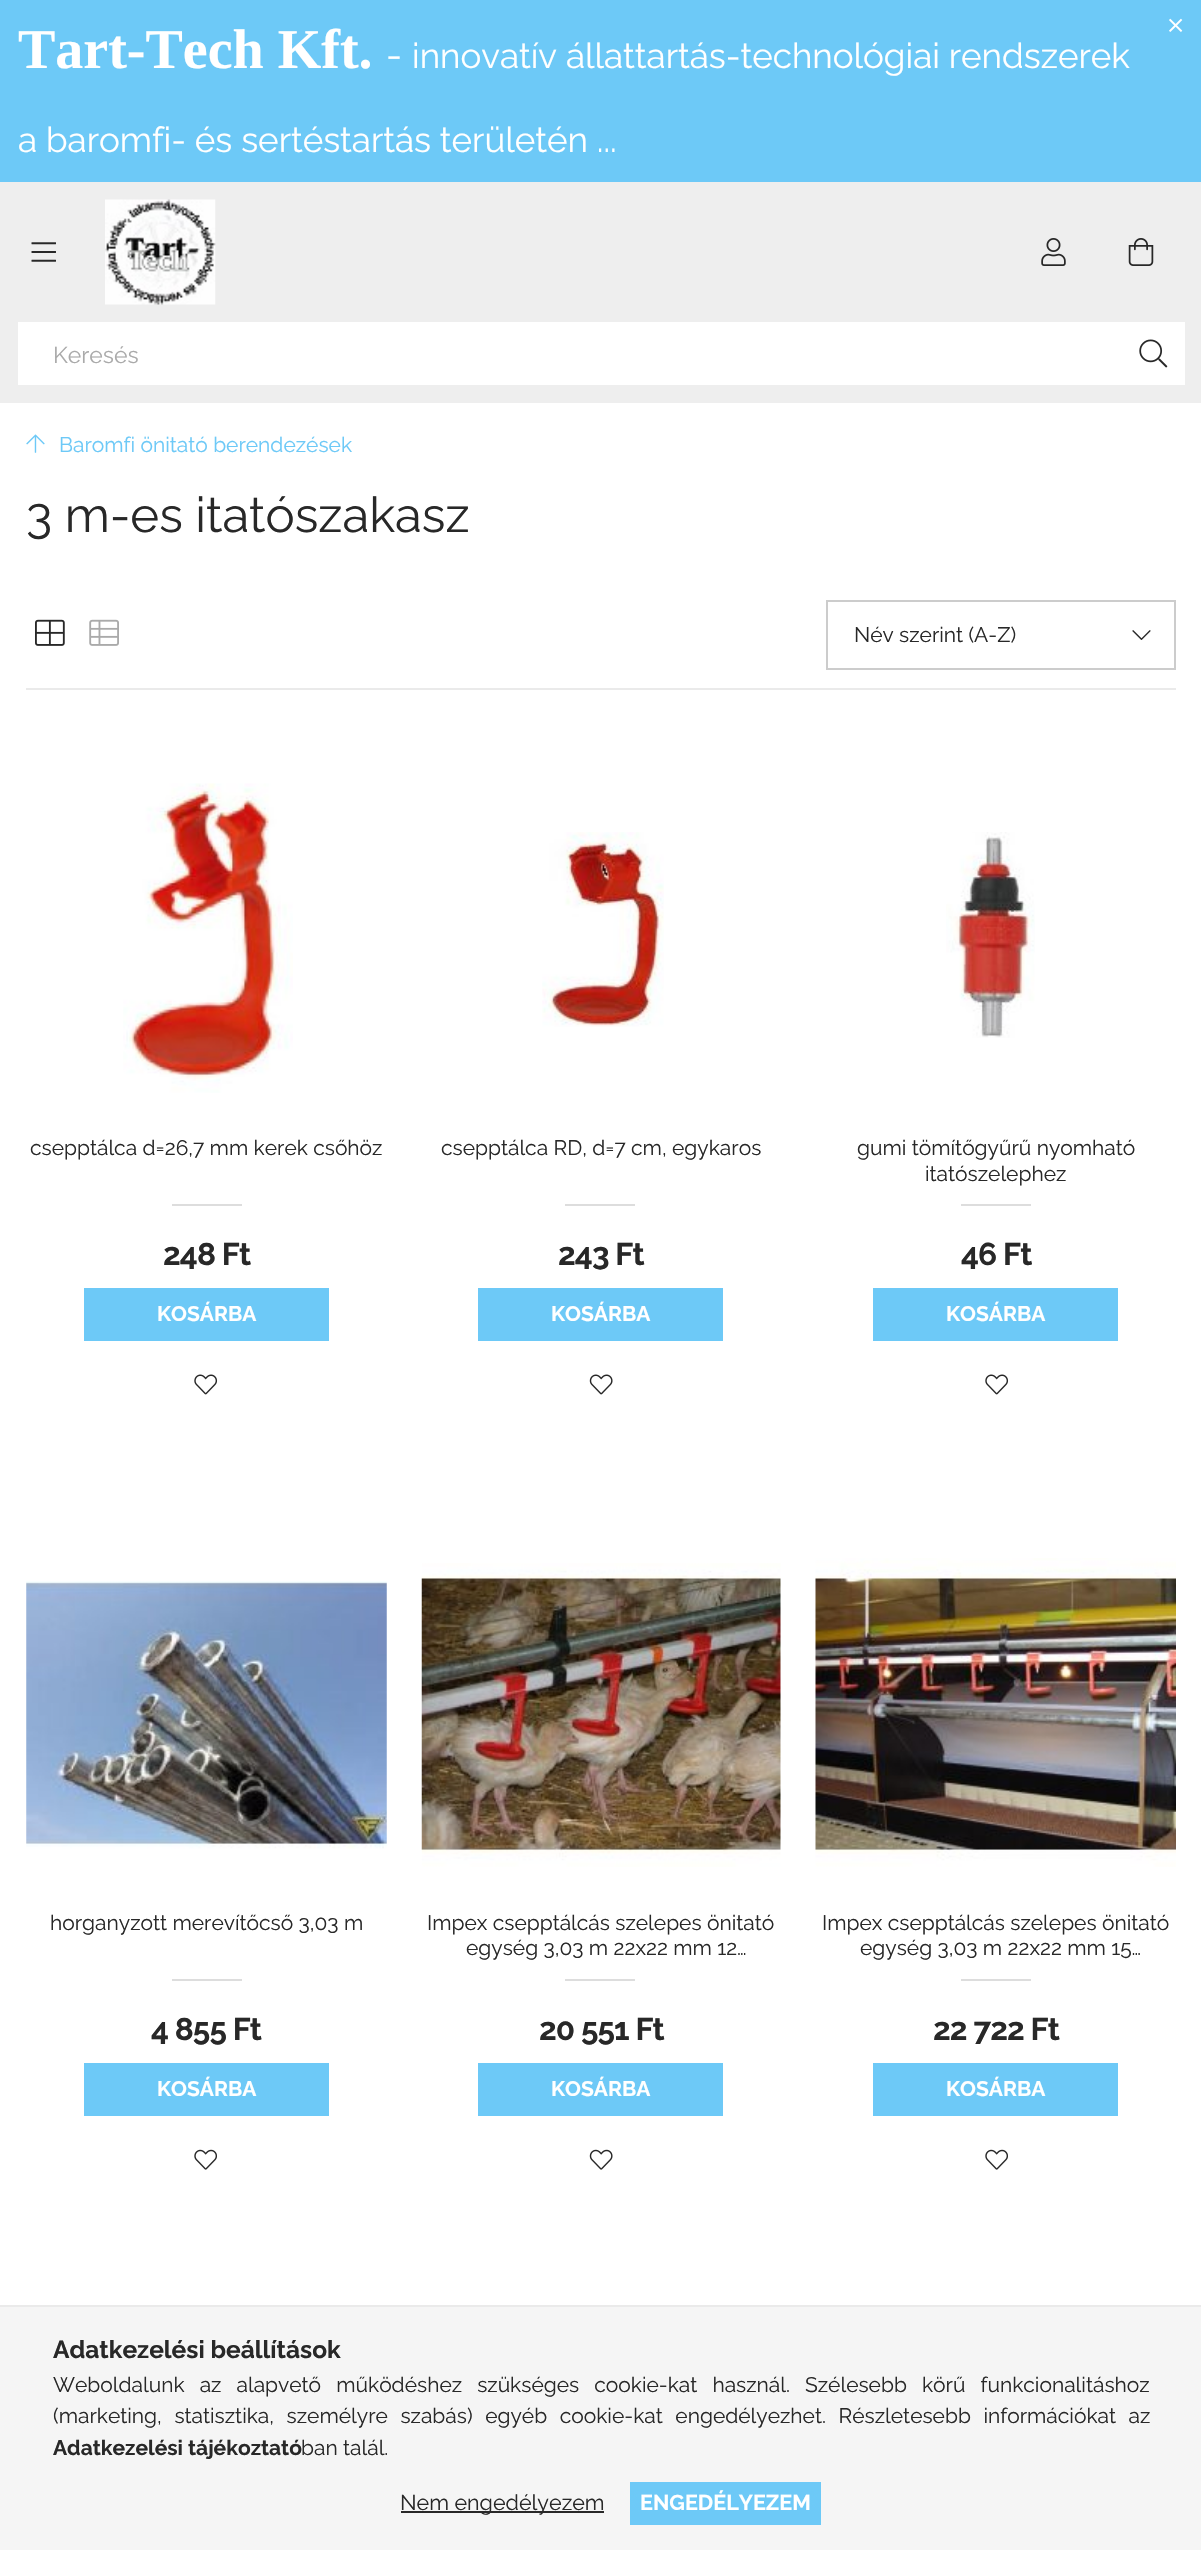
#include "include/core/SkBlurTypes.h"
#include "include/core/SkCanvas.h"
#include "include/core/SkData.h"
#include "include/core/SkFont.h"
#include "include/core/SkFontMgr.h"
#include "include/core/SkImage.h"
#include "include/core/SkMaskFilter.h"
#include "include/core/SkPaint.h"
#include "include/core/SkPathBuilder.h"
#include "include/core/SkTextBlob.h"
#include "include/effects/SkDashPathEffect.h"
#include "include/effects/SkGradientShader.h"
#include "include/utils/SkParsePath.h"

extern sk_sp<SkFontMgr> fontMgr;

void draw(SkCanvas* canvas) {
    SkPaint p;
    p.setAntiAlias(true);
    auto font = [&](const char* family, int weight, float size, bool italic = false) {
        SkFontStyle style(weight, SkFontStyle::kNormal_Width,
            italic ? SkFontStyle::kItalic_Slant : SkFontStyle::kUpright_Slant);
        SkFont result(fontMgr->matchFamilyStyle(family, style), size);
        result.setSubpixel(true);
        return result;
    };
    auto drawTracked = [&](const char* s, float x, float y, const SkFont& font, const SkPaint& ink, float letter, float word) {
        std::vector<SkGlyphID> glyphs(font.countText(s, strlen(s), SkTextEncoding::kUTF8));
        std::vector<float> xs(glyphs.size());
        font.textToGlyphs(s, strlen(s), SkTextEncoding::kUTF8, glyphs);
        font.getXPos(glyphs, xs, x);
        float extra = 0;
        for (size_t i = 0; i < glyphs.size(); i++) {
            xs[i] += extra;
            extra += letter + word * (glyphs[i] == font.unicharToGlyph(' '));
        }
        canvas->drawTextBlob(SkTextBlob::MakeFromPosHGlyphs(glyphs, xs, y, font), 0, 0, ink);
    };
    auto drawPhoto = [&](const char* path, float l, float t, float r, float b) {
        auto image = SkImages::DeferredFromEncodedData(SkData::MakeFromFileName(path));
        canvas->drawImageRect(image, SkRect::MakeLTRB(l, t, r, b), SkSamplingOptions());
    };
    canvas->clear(0xFFFFFFFF);
    p.setColor(0xFF6DC9F7);
    canvas->drawRect(SkRect::MakeLTRB(0, 0, 1201, 182), p);
    drawPhoto("media/1.png", 1169, 18, 1183, 32);
    auto font1 = font("Liberation Serif", 700, 56);
    p.setColor(0xFFFFFFFF);
    canvas->drawString("Tart-Tech Kft.", 18, 68, font1, p);
    auto font2 = font("Raleway", 400, 38);
    canvas->drawString("-", 386, 68, font2, p);
    auto font3 = font("Raleway", 400, 35);
    canvas->drawString("innovatív állattartás-technológiai rendszerek", 412, 68, font3, p);
    canvas->drawString("a baromfi- és sertéstartás területén ...", 18, 152, font3, p);
    p.setColor(0xFFEEEEEE);
    canvas->drawRect(SkRect::MakeLTRB(0, 182, 1201, 403), p);
    drawPhoto("media/2.png", 31, 242, 56, 262);
    drawPhoto("media/3.png", 105, 199, 216, 305);
    drawPhoto("media/4.png", 1041, 238, 1066, 266);
    drawPhoto("media/5.png", 1128, 238, 1154, 266);
    p.setColor(0xFFFFFFFF);
    canvas->drawRect(SkRect::MakeLTRB(18, 322, 1185, 385), p);
    auto font4 = font("Raleway", 400, 23);
    p.setColor(0xFFAAAAAA);
    canvas->drawString("Keresés", 53, 363, font4, p);
    drawPhoto("media/6.png", 1139, 339, 1168, 368);
    drawPhoto("media/7.png", 26, 434, 45, 453);
    auto font5 = font("Raleway", 400, 21);
    p.setColor(0xFF6DC9F7);
    canvas->drawString("Baromfi önitató berendezések", 59, 452, font5, p);
    auto font6 = font("Raleway", 400, 49);
    p.setColor(0xFF282828);
    canvas->drawString("3 m-es itatószakasz", 26, 532, font6, p);
    p.setColor(0xFFEAEAEA);
    canvas->drawRect(SkRect::MakeLTRB(26, 688, 1176, 690), p);
    drawPhoto("media/8.png", 35, 619, 65, 646);
    drawPhoto("media/9.png", 89, 619, 119, 646);
    p.setStyle(SkPaint::kStroke_Style);
    p.setStrokeWidth(2);
    p.setColor(0xFFCCCCCC);
    canvas->drawRect(SkRect::MakeLTRB(827, 601, 1175, 669), p);
    p.setStyle(SkPaint::kFill_Style);
    p.setColor(0xFF282828);
    canvas->drawString("Név szerint (A-Z)", 854, 642, font5, p);
    drawPhoto("media/10.png", 1132, 630, 1151, 640);
    drawPhoto("media/11.png", 123, 783, 293, 1093);
    canvas->drawString("csepptálca d=26,7 mm kerek csőhöz", 30, 1155, font5, p);
    p.setColor(0xFFDDDDDD);
    canvas->drawRect(SkRect::MakeLTRB(172, 1204, 242, 1206), p);
    auto font7 = font("Raleway", 700, 31.5f);
    p.setColor(0xFF282828);
    drawTracked("248 Ft", 163, 1265, font7, p, -0.9f, 0);
    p.setColor(0xFF6DC9F7);
    canvas->drawRect(SkRect::MakeLTRB(84, 1288, 329, 1341), p);
    auto font8 = font("Raleway", 700, 21);
    p.setColor(0xFFFFFFFF);
    canvas->drawString("KOSÁRBA", 157, 1321, font8, p);
    drawPhoto("media/12.png", 194, 1374, 218, 1395);
    drawPhoto("media/13.png", 542, 832, 664, 1027);
    p.setColor(0xFF282828);
    canvas->drawString("csepptálca RD, d=7 cm, egykaros", 441, 1155, font5, p);
    p.setColor(0xFFDDDDDD);
    canvas->drawRect(SkRect::MakeLTRB(565, 1204, 635, 1206), p);
    p.setColor(0xFF282828);
    drawTracked("243 Ft", 558, 1265, font7, p, -0.9f, 0);
    p.setColor(0xFF6DC9F7);
    canvas->drawRect(SkRect::MakeLTRB(478, 1288, 723, 1341), p);
    p.setColor(0xFFFFFFFF);
    canvas->drawString("KOSÁRBA", 551, 1321, font8, p);
    drawPhoto("media/14.png", 589, 1374, 613, 1395);
    drawPhoto("media/15.png", 946, 832, 1035, 1038);
    p.setColor(0xFF282828);
    canvas->drawString("gumi tömítőgyűrű nyomható", 857, 1155, font5, p);
    canvas->drawString("itatószelephez", 925, 1181, font5, p);
    p.setColor(0xFFDDDDDD);
    canvas->drawRect(SkRect::MakeLTRB(961, 1204, 1031, 1206), p);
    p.setColor(0xFF282828);
    drawTracked("46 Ft", 961, 1265, font7, p, -0.9f, 0);
    p.setColor(0xFF6DC9F7);
    canvas->drawRect(SkRect::MakeLTRB(873, 1288, 1118, 1341), p);
    p.setColor(0xFFFFFFFF);
    canvas->drawString("KOSÁRBA", 946, 1321, font8, p);
    drawPhoto("media/12.png", 985, 1374, 1009, 1395);
    drawPhoto("media/16.png", 26, 1581, 387, 1849);
    p.setColor(0xFF282828);
    canvas->drawString("horganyzott merevítőcső 3,03 m", 50, 1930, font5, p);
    p.setColor(0xFFDDDDDD);
    canvas->drawRect(SkRect::MakeLTRB(172, 1979, 242, 1981), p);
    p.setColor(0xFF282828);
    drawTracked("4 855 Ft", 151, 2040, font7, p, -0.9f, 0);
    p.setColor(0xFF6DC9F7);
    canvas->drawRect(SkRect::MakeLTRB(84, 2063, 329, 2116), p);
    p.setColor(0xFFFFFFFF);
    canvas->drawString("KOSÁRBA", 157, 2096, font8, p);
    drawPhoto("media/17.png", 194, 2149, 217, 2170);
    drawPhoto("media/18.png", 421, 1563, 781, 1867);
    p.setColor(0xFF282828);
    canvas->drawString("Impex csepptálcás szelepes önitató", 427, 1930, font5, p);
    canvas->drawString("egység 3,03 m 22x22 mm 12…", 466, 1955, font5, p);
    p.setColor(0xFFDDDDDD);
    canvas->drawRect(SkRect::MakeLTRB(565, 1979, 635, 1981), p);
    p.setColor(0xFF282828);
    drawTracked("20 551 Ft", 539, 2040, font7, p, -0.9f, 0);
    p.setColor(0xFF6DC9F7);
    canvas->drawRect(SkRect::MakeLTRB(478, 2063, 723, 2116), p);
    p.setColor(0xFFFFFFFF);
    canvas->drawString("KOSÁRBA", 551, 2096, font8, p);
    drawPhoto("media/19.png", 589, 2149, 613, 2170);
    drawPhoto("media/20.png", 815, 1558, 1176, 1867);
    p.setColor(0xFF282828);
    canvas->drawString("Impex csepptálcás szelepes önitató", 822, 1930, font5, p);
    canvas->drawString("egység 3,03 m 22x22 mm 15…", 860, 1955, font5, p);
    p.setColor(0xFFDDDDDD);
    canvas->drawRect(SkRect::MakeLTRB(961, 1979, 1031, 1981), p);
    p.setColor(0xFF282828);
    drawTracked("22 722 Ft", 933, 2040, font7, p, -0.9f, 0);
    p.setColor(0xFF6DC9F7);
    canvas->drawRect(SkRect::MakeLTRB(873, 2063, 1118, 2116), p);
    p.setColor(0xFFFFFFFF);
    canvas->drawString("KOSÁRBA", 946, 2096, font8, p);
    drawPhoto("media/17.png", 985, 2149, 1008, 2170);
    p.setColor(0xFFF5F5F5);
    canvas->drawRect(SkRect::MakeLTRB(0, 2307, 1201, 2550), p);
    p.setColor(0xFFEAEAEA);
    canvas->drawRect(SkRect::MakeLTRB(0, 2305, 1201, 2307), p);
    auto font9 = font("Raleway", 700, 24.5f);
    p.setColor(0xFF282828);
    canvas->drawString("Adatkezelési beállítások", 53, 2358, font9, p);
    drawTracked("Weboldalunk az alapvető működéshez szükséges cookie-kat használ. Szélesebb körű funkcionalitáshoz", 53, 2392, font5, p, 0, 9.75f);
    drawTracked("(marketing, statisztika, személyre szabás) egyéb cookie-kat engedélyezhet. Részletesebb információkat az", 53, 2423, font5, p, 0, 7.25f);
    canvas->drawString("Adatkezelési tájékoztató", 53, 2455, font8, p);
    canvas->drawString("ban talál.", 301, 2455, font5, p);
    canvas->drawRect(SkRect::MakeLTRB(401, 2511, 604, 2513), p);
    auto font10 = font("Raleway", 400, 21.5f);
    canvas->drawString("Nem engedélyezem", 400, 2510, font10, p);
    p.setColor(0xFF6DC9F7);
    canvas->drawRect(SkRect::MakeLTRB(630, 2482, 821, 2525), p);
    auto font11 = font("Raleway", 700, 21.5f);
    p.setColor(0xFFFFFFFF);
    canvas->drawString("ENGEDÉLYEZEM", 640, 2510, font11, p);
}
